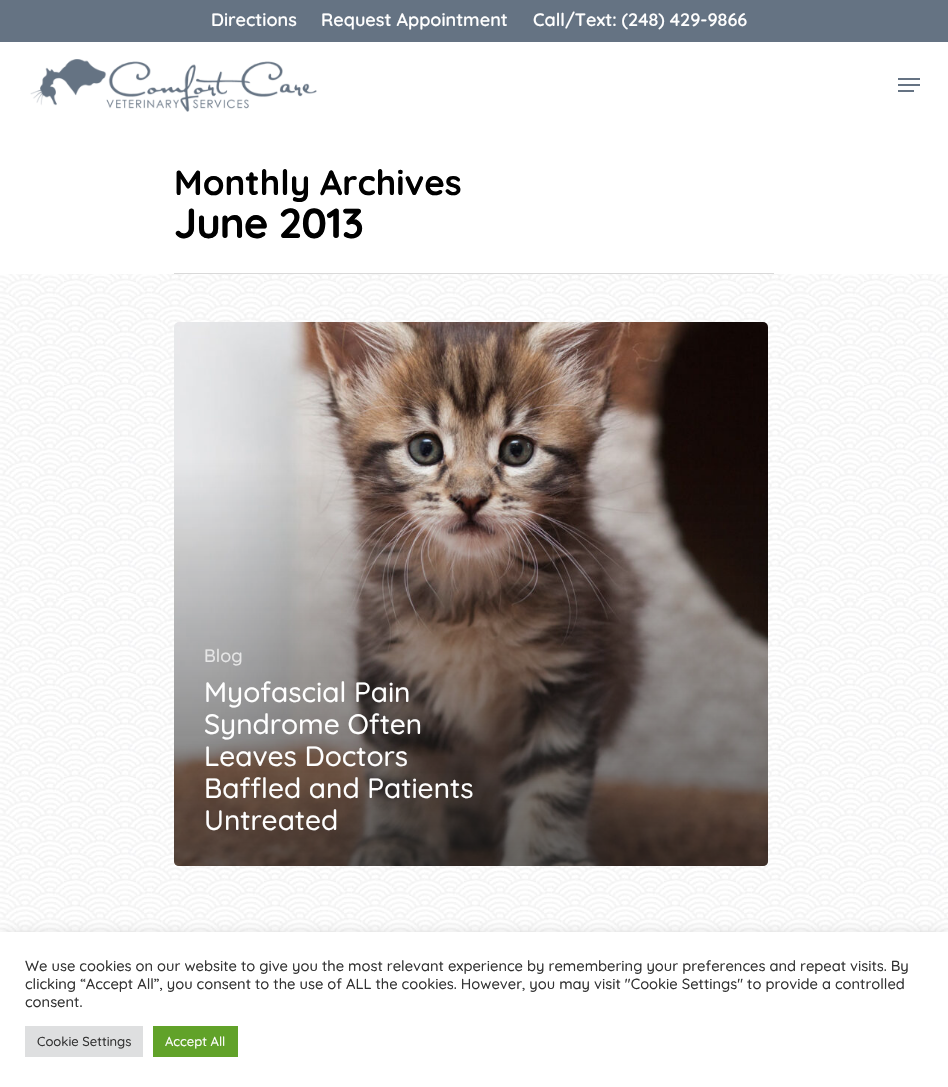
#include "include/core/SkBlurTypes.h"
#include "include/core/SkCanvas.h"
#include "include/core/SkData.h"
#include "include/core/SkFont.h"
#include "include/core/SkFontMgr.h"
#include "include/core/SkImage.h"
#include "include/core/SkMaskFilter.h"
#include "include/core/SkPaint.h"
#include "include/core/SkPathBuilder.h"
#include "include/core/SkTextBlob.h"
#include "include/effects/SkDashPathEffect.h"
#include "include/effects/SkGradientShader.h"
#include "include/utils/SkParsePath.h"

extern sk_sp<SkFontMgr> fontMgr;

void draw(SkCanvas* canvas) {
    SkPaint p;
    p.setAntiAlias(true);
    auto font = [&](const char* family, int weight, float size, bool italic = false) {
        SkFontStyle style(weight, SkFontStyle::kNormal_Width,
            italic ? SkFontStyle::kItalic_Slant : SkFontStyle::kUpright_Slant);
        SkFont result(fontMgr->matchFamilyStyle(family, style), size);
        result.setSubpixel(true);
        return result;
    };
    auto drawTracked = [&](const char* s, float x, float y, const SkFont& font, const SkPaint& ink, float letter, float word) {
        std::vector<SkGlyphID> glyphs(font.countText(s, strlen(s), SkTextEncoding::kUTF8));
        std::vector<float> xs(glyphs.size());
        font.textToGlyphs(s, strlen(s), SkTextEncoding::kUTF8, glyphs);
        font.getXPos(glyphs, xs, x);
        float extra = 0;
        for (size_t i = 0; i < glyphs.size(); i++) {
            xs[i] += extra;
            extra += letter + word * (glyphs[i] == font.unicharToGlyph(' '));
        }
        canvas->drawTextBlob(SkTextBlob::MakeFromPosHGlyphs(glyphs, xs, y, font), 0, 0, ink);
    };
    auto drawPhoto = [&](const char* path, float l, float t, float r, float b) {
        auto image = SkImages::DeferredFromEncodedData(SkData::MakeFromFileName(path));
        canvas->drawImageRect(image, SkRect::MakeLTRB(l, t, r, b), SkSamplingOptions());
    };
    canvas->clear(0xFFFFFFFF);
    p.setColor(0xFF657383);
    canvas->drawRect(SkRect::MakeLTRB(0, 0, 948, 42), p);
    auto font1 = font("Quicksand", 600, 18);
    p.setColor(0xFFFFFFFF);
    {
        const struct { const char* s; float x, y; } items[] = {
            {"Directions", 211, 26},
            {"Request Appointment", 321, 26},
            {"Call/Text: (248) 429-9866", 533, 26},
        };
        for (auto [s, x, y] : items) {
            canvas->drawString(s, x, y, font1, p);
        }
    }
    drawPhoto("media/1.png", 30, 59, 317, 112);
    {
        const struct { float l, t, r, b; SkColor color; } items[] = {
            {898, 78, 920, 80, 0xFF657383},
            {898, 90, 914, 92, 0xFF657383},
            {898, 84, 920, 86, 0xFF657383},
            {174, 273, 774, 274, 0xFFD9D9D9},
        };
        for (auto [l, t, r, b, color] : items) {
            p.setColor(color);
            canvas->drawRect(SkRect::MakeLTRB(l, t, r, b), p);
        }
    }
    auto font2 = font("Quicksand", 700, 35);
    p.setColor(0xFF000000);
    canvas->drawString("Monthly Archives", 174, 195, font2, p);
    auto font3 = font("Quicksand", 700, 42);
    drawTracked("June 2013", 174, 238, font3, p, -1, 0);
    drawPhoto("media/2.png", 0, 274, 948, 932);
    drawPhoto("media/3.png", 174, 322, 768, 866);
    {
        const SkColor colors[] = {0x00232323, 0xA6232323};
        const float stops[] = {0, 1};
        const SkPoint ends[] = {{473, 459}, {473, 868}};
        p.setShader(SkGradientShader::MakeLinear(ends, colors, stops, 2, SkTileMode::kClamp));
        p.setAlpha(255);
    }
    canvas->drawPath(SkPathBuilder().moveTo(174, 459).lineTo(768, 459).lineTo(768, 861).cubicTo(768, 864, 766, 866, 763, 866).lineTo(179, 866).cubicTo(176, 866, 174, 864, 174, 861).close().detach(), p);
    auto font4 = font("Quicksand", 500, 18);
    p.setShader(nullptr);
    p.setColor(0xFFE6E6E6);
    canvas->drawString("Blog", 204, 662, font4, p);
    auto font5 = font("Quicksand", 500, 28);
    p.setColor(0xFFFFFFFF);
    {
        const struct { const char* s; float x, y; } items[] = {
            {"Myofascial Pain", 204, 702},
            {"Syndrome Often", 204, 734},
            {"Leaves Doctors", 204, 766},
            {"Baffled and Patients", 204, 798},
            {"Untreated", 204, 830},
        };
        for (auto [s, x, y] : items) {
            canvas->drawString(s, x, y, font5, p);
        }
    }
    p.setColor(0x4DACABAB);
    p.setMaskFilter(SkMaskFilter::MakeBlur(kNormal_SkBlurStyle, 5));
    canvas->drawRect(SkRect::MakeLTRB(0, 931, 948, 1086), p);
    p.setMaskFilter(nullptr);
    p.setColor(0xFFFFFFFF);
    canvas->drawRect(SkRect::MakeLTRB(0, 932, 948, 1087), p);
    auto font6 = font("Quicksand", 500, 14.67f);
    p.setColor(0xFF333333);
    {
        const struct { const char* s; float x, y; } items[] = {
            {"We use cookies on our website to give you the most relevant experience by remembering your preferences and repeat visits. By", 25, 971},
            {"clicking “Accept All”, you consent to the use of ALL the cookies. However, you may visit \"Cookie Settings\" to provide a controlled", 25, 989},
            {"consent.", 25, 1007},
        };
        for (auto [s, x, y] : items) {
            canvas->drawString(s, x, y, font6, p);
        }
    }
    p.setColor(0xFFDEDFE0);
    canvas->drawRect(SkRect::MakeLTRB(25, 1026, 143, 1057), p);
    auto font7 = font("Quicksand", 500, 13);
    p.setColor(0xFF333333);
    canvas->drawString("Cookie Settings", 37, 1046, font7, p);
    p.setColor(0xFF61A229);
    canvas->drawRect(SkRect::MakeLTRB(153, 1026, 238, 1057), p);
    p.setColor(0xFFFFFFFF);
    canvas->drawString("Accept All", 165, 1046, font7, p);
}
